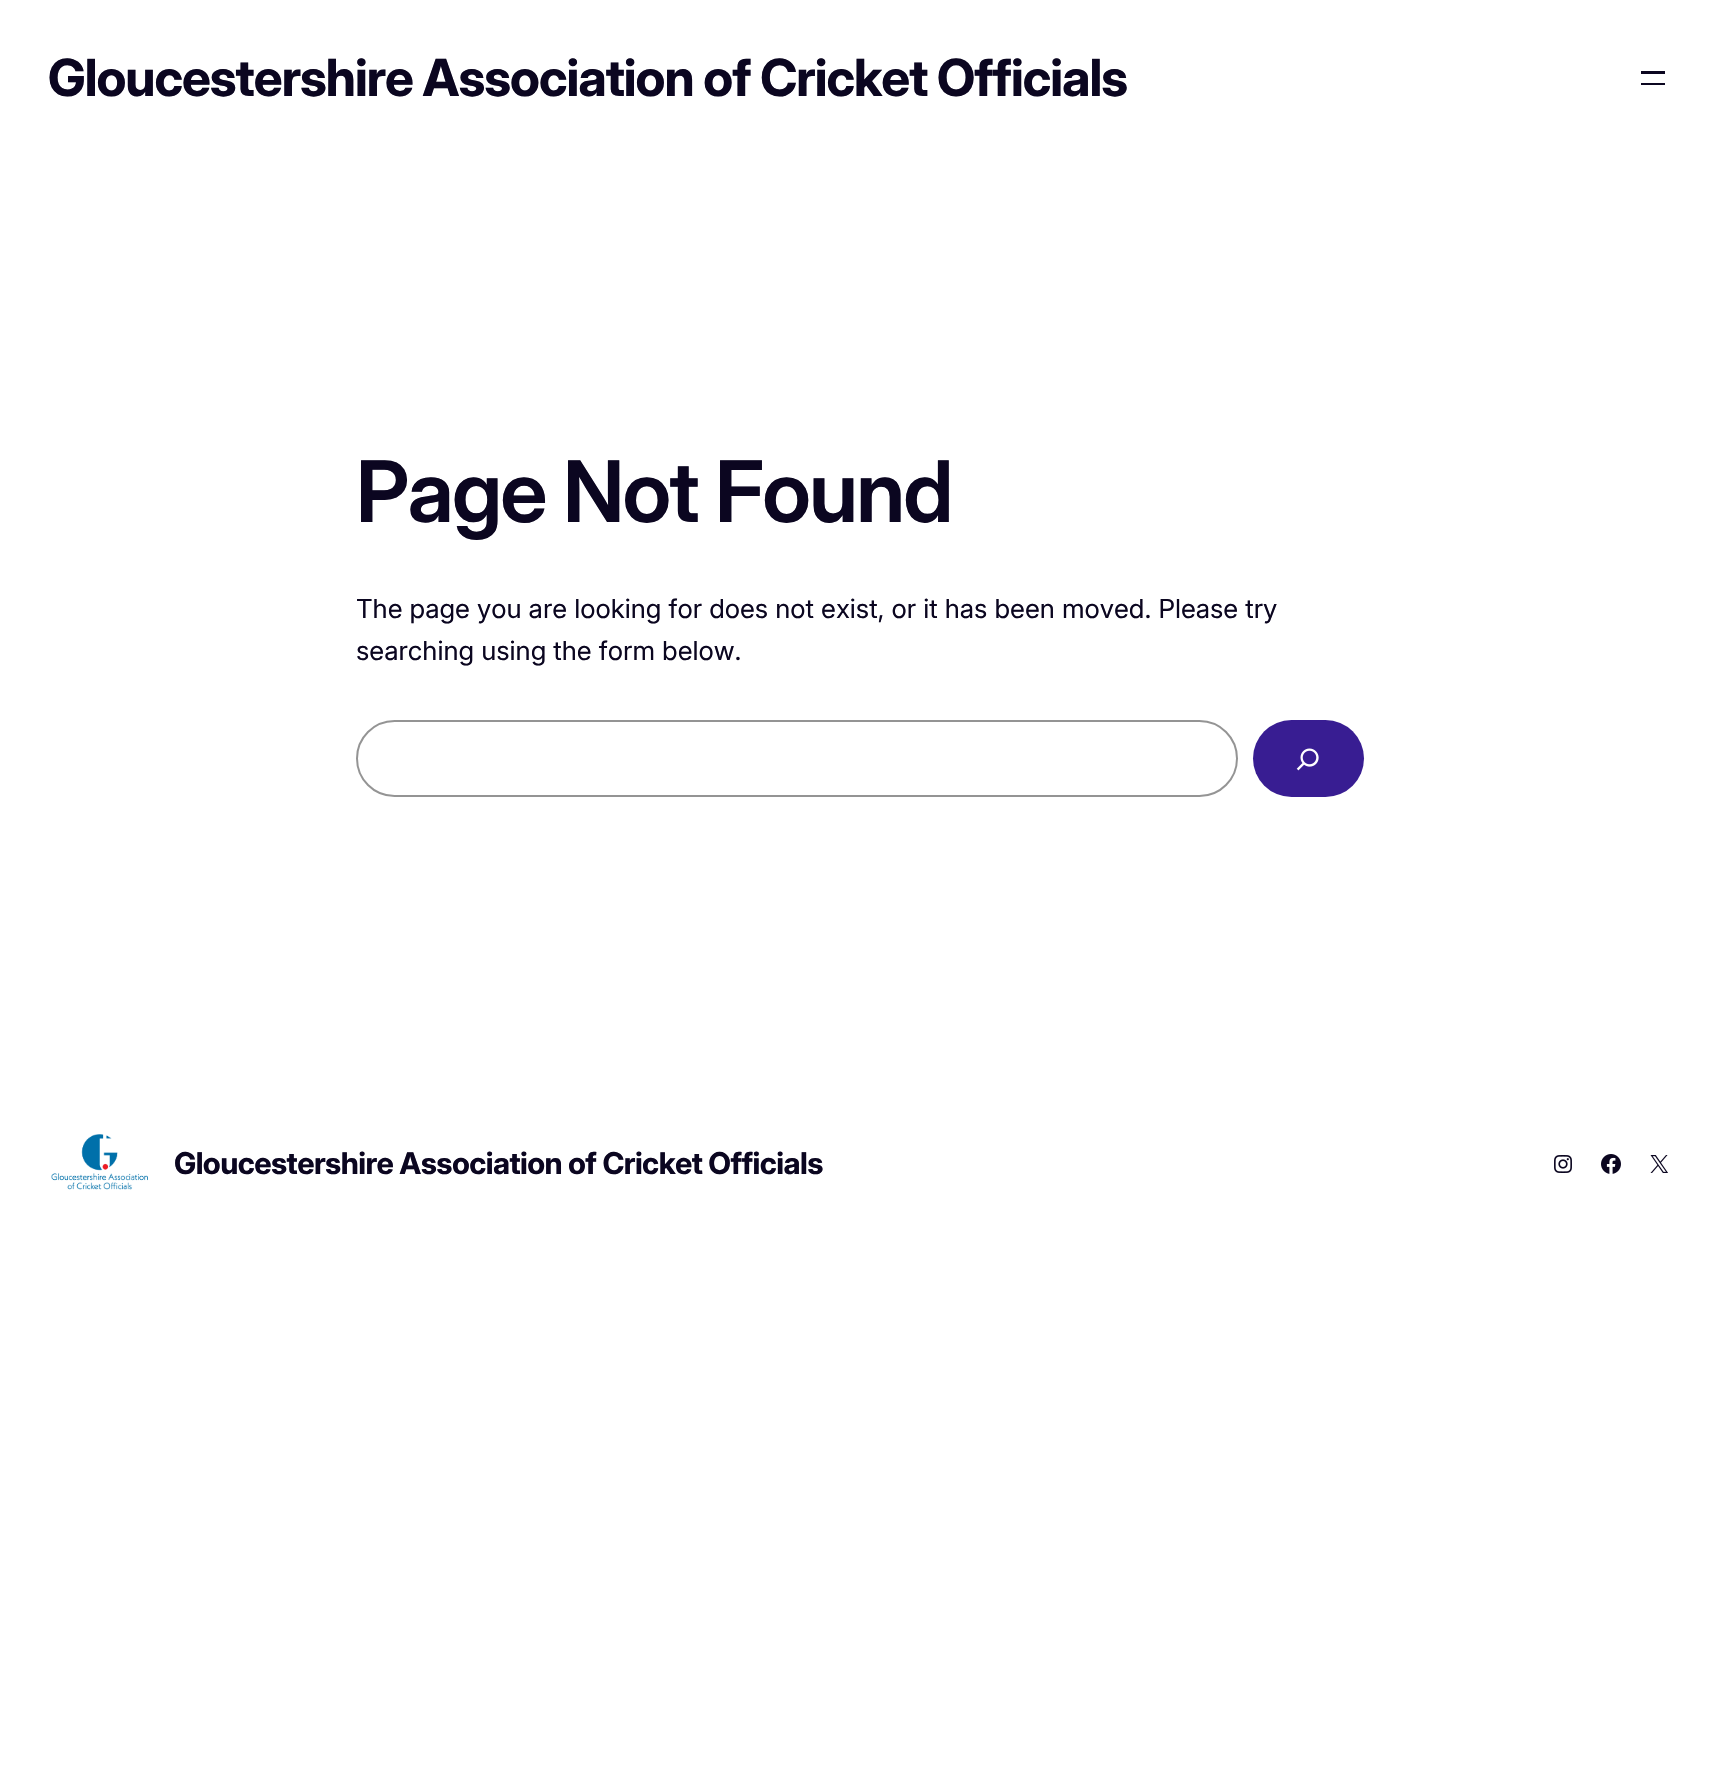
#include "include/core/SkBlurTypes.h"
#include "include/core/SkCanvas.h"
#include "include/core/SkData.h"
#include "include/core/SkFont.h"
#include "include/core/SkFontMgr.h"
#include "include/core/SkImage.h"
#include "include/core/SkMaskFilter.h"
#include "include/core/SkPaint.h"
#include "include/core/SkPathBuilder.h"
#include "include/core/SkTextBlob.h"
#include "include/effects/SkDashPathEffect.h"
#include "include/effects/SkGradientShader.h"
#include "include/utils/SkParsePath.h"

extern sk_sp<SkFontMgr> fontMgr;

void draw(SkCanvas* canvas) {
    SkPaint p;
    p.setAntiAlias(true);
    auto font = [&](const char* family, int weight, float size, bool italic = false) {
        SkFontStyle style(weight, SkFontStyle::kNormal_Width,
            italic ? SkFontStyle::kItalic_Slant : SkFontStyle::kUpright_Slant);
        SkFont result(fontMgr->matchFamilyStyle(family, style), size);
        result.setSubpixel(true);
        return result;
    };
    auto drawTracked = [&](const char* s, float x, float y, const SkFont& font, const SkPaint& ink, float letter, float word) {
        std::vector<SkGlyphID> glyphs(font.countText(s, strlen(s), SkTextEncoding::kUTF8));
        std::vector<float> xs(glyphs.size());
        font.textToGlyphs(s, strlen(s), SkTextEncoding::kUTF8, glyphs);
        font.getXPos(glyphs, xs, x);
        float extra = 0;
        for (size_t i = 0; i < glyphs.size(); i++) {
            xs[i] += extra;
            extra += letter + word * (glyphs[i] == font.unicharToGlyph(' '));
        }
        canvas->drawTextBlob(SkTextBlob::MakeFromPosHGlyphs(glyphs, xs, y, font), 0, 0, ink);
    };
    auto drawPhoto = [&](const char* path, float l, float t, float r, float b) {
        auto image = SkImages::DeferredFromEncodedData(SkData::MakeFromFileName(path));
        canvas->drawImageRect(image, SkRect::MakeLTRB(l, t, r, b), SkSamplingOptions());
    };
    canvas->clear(0xFFFFFFFF);
    auto font1 = font("Inter", 700, 51.1f);
    p.setColor(0xFF0B0620);
    drawTracked("Gloucestershire Association of Cricket Officials", 48, 96, font1, p, -1, 0);
    canvas->drawRect(SkRect::MakeLTRB(1641, 71, 1665, 74), p);
    canvas->drawRect(SkRect::MakeLTRB(1641, 83, 1665, 85), p);
    auto font2 = font("Inter", 600, 85);
    drawTracked("Page Not Found", 356, 522, font2, p, -1.75f, 0);
    auto font3 = font("Inter", 400, 26.15f);
    canvas->drawString("The page you are looking for does not exist, or it has been moved. Please try", 356, 618, font3, p);
    canvas->drawString("searching using the form below.", 356, 660, font3, p);
    p.setStyle(SkPaint::kStroke_Style);
    p.setStrokeWidth(2);
    p.setColor(0xFF949494);
    canvas->drawRoundRect(SkRect::MakeLTRB(357, 721, 1237, 796), 37.5f, 37.5f, p);
    p.setStyle(SkPaint::kFill_Style);
    p.setColor(0xFF381D92);
    canvas->drawRoundRect(SkRect::MakeLTRB(1253, 720, 1364, 797), 38.5f, 38.5f, p);
    drawPhoto("media/1.png", 1296, 748, 1319, 771);
    drawPhoto("media/2.png", 51, 1134, 148, 1190);
    auto font4 = font("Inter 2", 700, 30);
    p.setColor(0xFF0B0620);
    drawTracked("Gloucestershire Association of Cricket Officials", 174, 1174, font4, p, -0.6f, 0);
    drawPhoto("media/3.png", 1554, 1155, 1572, 1173);
    drawPhoto("media/4.png", 1601, 1154, 1621, 1174);
    drawPhoto("media/5.png", 1650, 1155, 1668, 1173);
}
